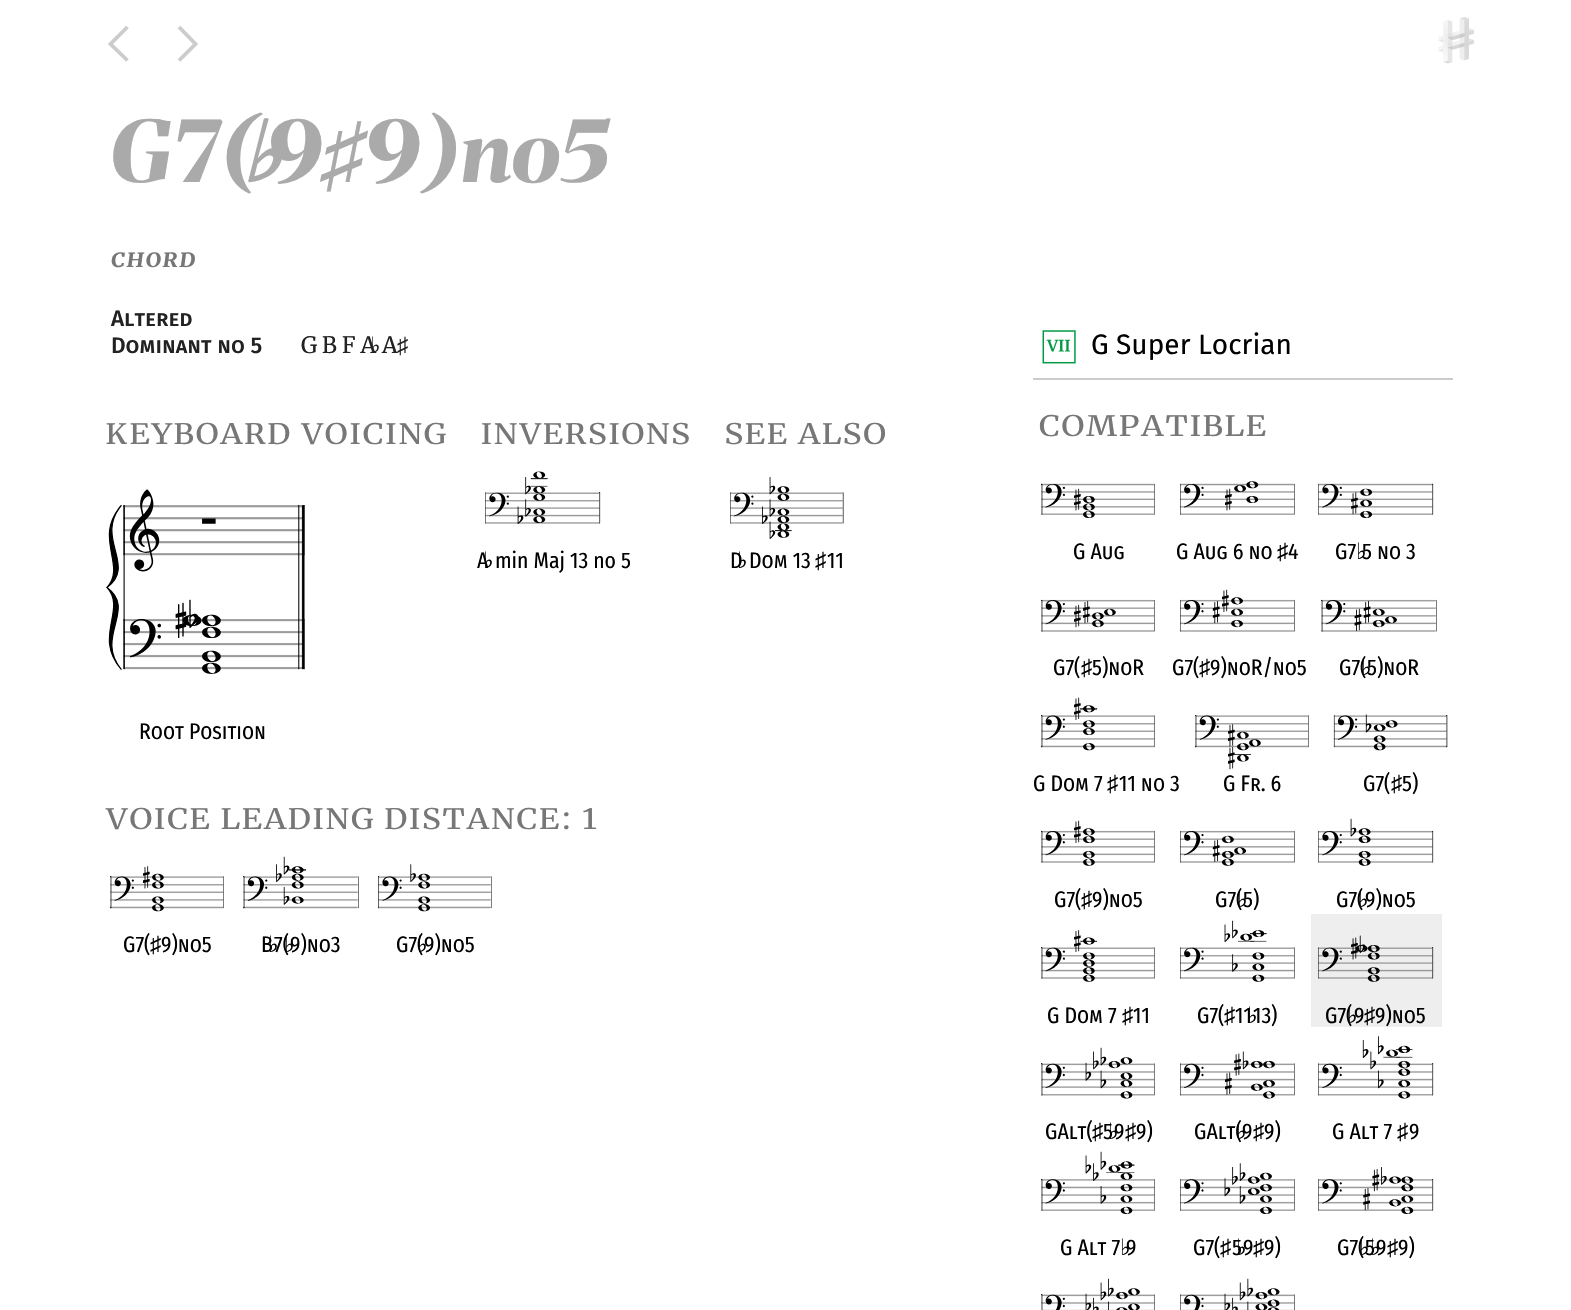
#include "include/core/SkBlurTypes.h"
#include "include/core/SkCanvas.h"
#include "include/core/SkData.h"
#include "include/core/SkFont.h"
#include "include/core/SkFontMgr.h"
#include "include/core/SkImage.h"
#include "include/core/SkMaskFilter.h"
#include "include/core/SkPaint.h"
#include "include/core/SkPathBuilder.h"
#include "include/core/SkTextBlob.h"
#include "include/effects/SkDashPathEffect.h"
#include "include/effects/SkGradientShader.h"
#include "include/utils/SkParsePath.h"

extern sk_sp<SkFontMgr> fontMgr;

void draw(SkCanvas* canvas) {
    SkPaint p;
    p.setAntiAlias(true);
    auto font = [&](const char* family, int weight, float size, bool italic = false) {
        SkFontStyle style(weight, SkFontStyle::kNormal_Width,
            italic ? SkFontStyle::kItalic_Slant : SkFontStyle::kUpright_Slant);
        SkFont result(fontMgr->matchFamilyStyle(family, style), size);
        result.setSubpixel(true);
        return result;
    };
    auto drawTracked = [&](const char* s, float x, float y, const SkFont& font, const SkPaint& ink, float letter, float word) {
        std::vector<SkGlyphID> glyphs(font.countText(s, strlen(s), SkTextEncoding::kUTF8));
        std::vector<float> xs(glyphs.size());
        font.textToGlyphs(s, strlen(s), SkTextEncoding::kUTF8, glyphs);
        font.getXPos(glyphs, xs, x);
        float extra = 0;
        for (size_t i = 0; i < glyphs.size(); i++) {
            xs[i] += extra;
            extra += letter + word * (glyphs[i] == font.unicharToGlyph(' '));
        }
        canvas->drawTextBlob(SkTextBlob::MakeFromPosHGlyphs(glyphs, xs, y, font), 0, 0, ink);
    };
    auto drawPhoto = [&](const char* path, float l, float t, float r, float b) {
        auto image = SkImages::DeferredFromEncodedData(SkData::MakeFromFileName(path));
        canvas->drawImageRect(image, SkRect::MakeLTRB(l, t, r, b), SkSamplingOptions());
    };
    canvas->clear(0xFFFFFFFF);
    p.setStyle(SkPaint::kStroke_Style);
    p.setStrokeWidth(3.8f);
    p.setColor(0xFFCCCCCC);
    canvas->drawPath(SkPathBuilder().moveTo(127.5f, 60.5f).lineTo(110.5f, 44).lineTo(127.5f, 27).detach(), p);
    canvas->drawPath(SkPathBuilder().moveTo(179, 60.5f).lineTo(195.5f, 44).lineTo(179, 27).detach(), p);
    drawPhoto("media/1.png", 1438, 17, 1474, 64);
    auto font1 = font("Merriweather", 900, 84, true);
    p.setStyle(SkPaint::kFill_Style);
    p.setColor(0xFFAAAAAA);
    drawTracked("G7(", 111, 182, font1, p, 0.5f, 0);
    auto font2 = font("DejaVu Sans", 700, 84, true);
    drawTracked("♭", 241, 182, font2, p, 0.5f, 0);
    drawTracked("9", 266, 182, font1, p, 0.5f, 0);
    drawTracked("9)no5", 364, 182, font1, p, 0.5f, 0);
    auto font3 = font("Liberation Sans", 700, 84, true);
    drawTracked("♯", 322, 182, font3, p, 0.5f, 0);
    auto font4 = font("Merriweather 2", 900, 19.5f, true);
    p.setColor(0xFF777777);
    drawTracked("CHORD", 111, 267, font4, p, 2, 0);
    auto font5 = font("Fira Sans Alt", 500, 22.5f);
    p.setColor(0xFF222222);
    canvas->drawString("Altered", 111, 326, font5, p);
    canvas->drawString("Dominant no 5", 111, 353, font5, p);
    auto font6 = font("Merriweather", 400, 22.5f);
    canvas->drawString("G B F A", 301, 353, font6, p);
    auto font7 = font("DejaVu Sans", 400, 22.5f);
    canvas->drawString("♭", 370, 353, font7, p);
    canvas->drawString("A", 382, 353, font6, p);
    auto font8 = font("Liberation Sans", 400, 22.5f);
    canvas->drawString("♯", 397, 353, font8, p);
    p.setColor(0xFFCCCCCC);
    canvas->drawRect(SkRect::MakeLTRB(1033, 378, 1453, 380), p);
    drawPhoto("media/2.png", 1042, 330, 1076, 364);
    auto font9 = font("Fira Sans", 400, 28);
    p.setColor(0xFF000000);
    canvas->drawString("G Super Locrian", 1091, 354, font9, p);
    auto font10 = font("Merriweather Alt", 400, 32.25f);
    p.setColor(0xFF777777);
    drawTracked("compatible", 1039, 436, font10, p, 2.25f, 0);
    drawPhoto("media/3.png", 1041, 483, 1155, 518);
    auto font11 = font("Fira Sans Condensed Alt", 400, 22.5f);
    p.setColor(0xFF000000);
    canvas->drawString("G Aug", 1073, 559, font11, p);
    drawPhoto("media/4.png", 1180, 481, 1295, 515);
    canvas->drawString("G Aug 6 no", 1176, 559, font11, p);
    canvas->drawString("♯", 1277, 559, font8, p);
    auto font12 = font("Fira Sans Condensed", 400, 22.5f);
    canvas->drawString("4", 1288, 559, font12, p);
    drawPhoto("media/5.png", 1318, 483, 1434, 518);
    canvas->drawString("G7", 1335, 559, font12, p);
    canvas->drawString("♭", 1356, 559, font7, p);
    canvas->drawString("5 no 3", 1362, 559, font11, p);
    drawPhoto("media/6.png", 1041, 599, 1155, 632);
    canvas->drawString("G7(", 1053, 675, font12, p);
    canvas->drawString("♯", 1081, 675, font8, p);
    canvas->drawString("5)noR", 1092, 675, font11, p);
    drawPhoto("media/7.png", 1180, 589, 1295, 632);
    canvas->drawString("G7(", 1172, 675, font12, p);
    canvas->drawString("♯", 1199, 675, font8, p);
    canvas->drawString("9)noR/no5", 1210, 675, font11, p);
    drawPhoto("media/8.png", 1321, 599, 1437, 632);
    canvas->drawString("G7(", 1339, 675, font12, p);
    canvas->drawString("♭", 1361, 675, font7, p);
    canvas->drawString("5)noR", 1367, 675, font11, p);
    drawPhoto("media/9.png", 1041, 697, 1155, 751);
    canvas->drawString("G Dom 7", 1033, 791, font11, p);
    canvas->drawString("♯", 1107, 791, font8, p);
    canvas->drawString("11 no 3", 1119, 791, font11, p);
    drawPhoto("media/10.png", 1195, 715, 1309, 770);
    canvas->drawString("G Fr. 6", 1223, 791, font11, p);
    drawPhoto("media/11.png", 1333, 714, 1448, 751);
    canvas->drawString("G7(", 1363, 791, font12, p);
    canvas->drawString("♯", 1391, 791, font8, p);
    canvas->drawString("5)", 1402, 791, font12, p);
    drawPhoto("media/12.png", 1041, 820, 1155, 866);
    canvas->drawString("G7(", 1054, 907, font12, p);
    canvas->drawString("♯", 1081, 907, font8, p);
    canvas->drawString("9)no5", 1092, 907, font11, p);
    drawPhoto("media/13.png", 1180, 830, 1295, 866);
    canvas->drawString("G7(", 1215, 907, font12, p);
    canvas->drawString("♭", 1237, 907, font7, p);
    canvas->drawString("5)", 1243, 907, font12, p);
    drawPhoto("media/14.png", 1318, 818, 1434, 866);
    canvas->drawString("G7(", 1336, 907, font12, p);
    canvas->drawString("♭", 1358, 907, font7, p);
    canvas->drawString("9)no5", 1365, 907, font11, p);
    drawPhoto("media/15.png", 1041, 930, 1155, 982);
    canvas->drawString("G Dom 7", 1047, 1023, font11, p);
    canvas->drawString("♯", 1122, 1023, font8, p);
    canvas->drawString("11", 1133, 1023, font12, p);
    drawPhoto("media/16.png", 1180, 920, 1295, 982);
    canvas->drawString("G7(", 1197, 1023, font12, p);
    canvas->drawString("♯", 1224, 1023, font8, p);
    canvas->drawString("11", 1235, 1023, font12, p);
    canvas->drawString("♭", 1247, 1023, font7, p);
    canvas->drawString("13)", 1253, 1023, font12, p);
    p.setColor(0xFFEEEEEE);
    canvas->drawRect(SkRect::MakeLTRB(1311, 914, 1442, 1027), p);
    drawPhoto("media/17.png", 1318, 935, 1434, 982);
    p.setColor(0xFF000000);
    canvas->drawString("G7(", 1325, 1023, font12, p);
    canvas->drawString("♭", 1347, 1023, font7, p);
    canvas->drawString("9", 1354, 1023, font12, p);
    canvas->drawString("♯", 1364, 1023, font8, p);
    canvas->drawString("9)no5", 1375, 1023, font11, p);
    drawPhoto("media/18.png", 1041, 1047, 1155, 1099);
    canvas->drawString("GAlt(", 1045, 1139, font11, p);
    canvas->drawString("♯", 1092, 1139, font8, p);
    canvas->drawString("5", 1103, 1139, font12, p);
    canvas->drawString("♭", 1108, 1139, font7, p);
    canvas->drawString("9", 1114, 1139, font12, p);
    canvas->drawString("♯", 1125, 1139, font8, p);
    canvas->drawString("9)", 1136, 1139, font12, p);
    drawPhoto("media/19.png", 1180, 1051, 1295, 1099);
    canvas->drawString("GAlt(", 1194, 1139, font11, p);
    canvas->drawString("9)", 1264, 1139, font12, p);
    canvas->drawString("♭", 1236, 1139, font7, p);
    canvas->drawString("9", 1242, 1139, font12, p);
    canvas->drawString("♯", 1253, 1139, font8, p);
    drawPhoto("media/20.png", 1318, 1036, 1434, 1099);
    canvas->drawString("G Alt 7", 1332, 1139, font11, p);
    canvas->drawString("♯", 1397, 1139, font8, p);
    canvas->drawString("9", 1409, 1139, font12, p);
    drawPhoto("media/21.png", 1041, 1151, 1155, 1214);
    canvas->drawString("G Alt 7", 1060, 1255, font11, p);
    canvas->drawString("♭", 1120, 1255, font7, p);
    canvas->drawString("9", 1126, 1255, font12, p);
    drawPhoto("media/22.png", 1180, 1163, 1295, 1214);
    canvas->drawString("G7(", 1193, 1255, font12, p);
    canvas->drawString("♯", 1220, 1255, font8, p);
    canvas->drawString("5", 1232, 1255, font12, p);
    canvas->drawString("♭", 1236, 1255, font7, p);
    canvas->drawString("9", 1243, 1255, font12, p);
    canvas->drawString("♯", 1253, 1255, font8, p);
    canvas->drawString("9)", 1264, 1255, font12, p);
    drawPhoto("media/23.png", 1318, 1167, 1434, 1214);
    canvas->drawString("G7(", 1337, 1255, font12, p);
    canvas->drawString("9)", 1398, 1255, font12, p);
    canvas->drawString("♭", 1359, 1255, font7, p);
    canvas->drawString("5", 1365, 1255, font12, p);
    canvas->drawString("♭", 1370, 1255, font7, p);
    canvas->drawString("9", 1376, 1255, font12, p);
    canvas->drawString("♯", 1387, 1255, font8, p);
    drawPhoto("media/24.png", 1041, 1278, 1155, 1310);
    drawPhoto("media/25.png", 1180, 1278, 1295, 1310);
    p.setColor(0xFF777777);
    drawTracked("keyboard voicing", 106, 444, font10, p, 2.25f, 0);
    drawPhoto("media/26.png", 106, 489, 305, 674);
    p.setColor(0xFF000000);
    canvas->drawString("Root Position", 139, 739, font11, p);
    p.setColor(0xFF777777);
    drawTracked("inversions", 481, 444, font10, p, 2.25f, 0);
    drawPhoto("media/27.png", 485, 471, 601, 524);
    p.setColor(0xFF000000);
    canvas->drawString("A", 477, 568, font12, p);
    canvas->drawString("♭", 483, 568, font7, p);
    canvas->drawString("min Maj 13 no 5", 495, 568, font12, p);
    p.setColor(0xFF777777);
    drawTracked("see also", 725, 444, font10, p, 2.25f, 0);
    drawPhoto("media/28.png", 730, 477, 844, 539);
    p.setColor(0xFF000000);
    canvas->drawString("D", 730, 568, font12, p);
    canvas->drawString("♭", 737, 568, font7, p);
    canvas->drawString("Dom 13", 749, 568, font11, p);
    canvas->drawString("♯", 815, 568, font8, p);
    canvas->drawString("11", 827, 568, font12, p);
    p.setColor(0xFF777777);
    drawTracked("voice leading distance: 1", 106, 829, font10, p, 2.25f, 0);
    drawPhoto("media/29.png", 110, 866, 224, 912);
    p.setColor(0xFF000000);
    canvas->drawString("G7(", 123, 952, font12, p);
    canvas->drawString("♯", 150, 952, font8, p);
    canvas->drawString("9)no5", 161, 952, font11, p);
    drawPhoto("media/30.png", 243, 856, 359, 909);
    canvas->drawString("B", 261, 952, font12, p);
    canvas->drawString("♭", 268, 952, font7, p);
    canvas->drawString("7(", 274, 952, font12, p);
    canvas->drawString("♭", 284, 952, font7, p);
    canvas->drawString("9)no3", 290, 952, font11, p);
    drawPhoto("media/31.png", 378, 864, 492, 912);
    canvas->drawString("G7(", 396, 952, font12, p);
    canvas->drawString("♭", 417, 952, font7, p);
    canvas->drawString("9)no5", 424, 952, font11, p);
}
